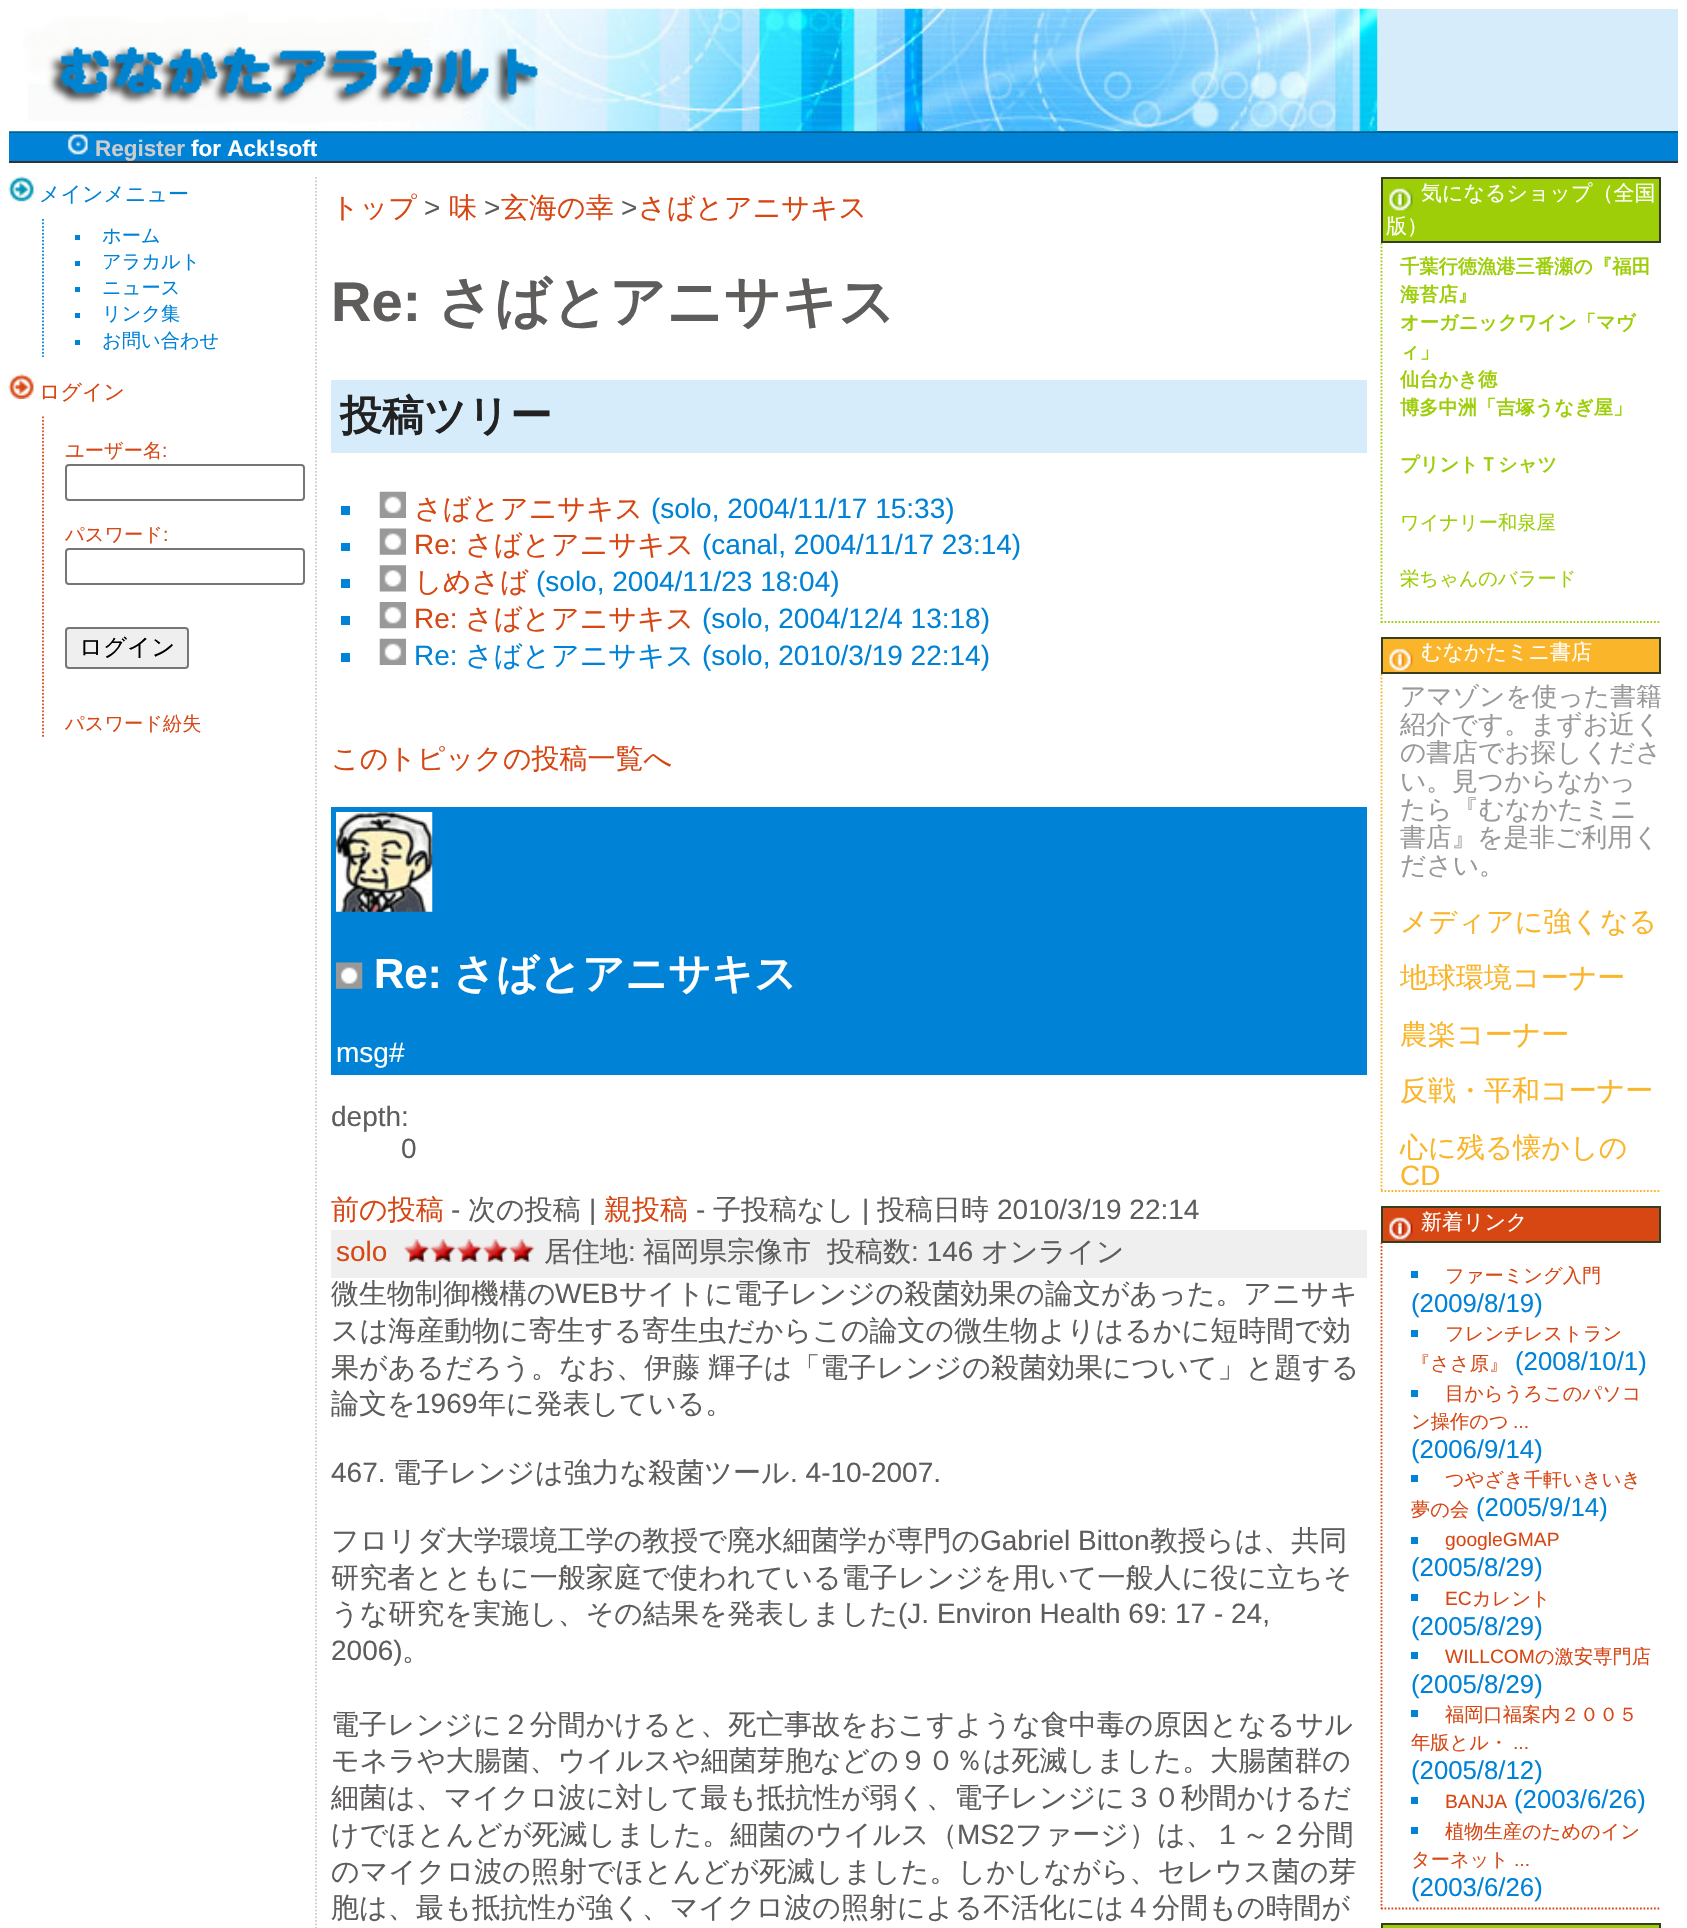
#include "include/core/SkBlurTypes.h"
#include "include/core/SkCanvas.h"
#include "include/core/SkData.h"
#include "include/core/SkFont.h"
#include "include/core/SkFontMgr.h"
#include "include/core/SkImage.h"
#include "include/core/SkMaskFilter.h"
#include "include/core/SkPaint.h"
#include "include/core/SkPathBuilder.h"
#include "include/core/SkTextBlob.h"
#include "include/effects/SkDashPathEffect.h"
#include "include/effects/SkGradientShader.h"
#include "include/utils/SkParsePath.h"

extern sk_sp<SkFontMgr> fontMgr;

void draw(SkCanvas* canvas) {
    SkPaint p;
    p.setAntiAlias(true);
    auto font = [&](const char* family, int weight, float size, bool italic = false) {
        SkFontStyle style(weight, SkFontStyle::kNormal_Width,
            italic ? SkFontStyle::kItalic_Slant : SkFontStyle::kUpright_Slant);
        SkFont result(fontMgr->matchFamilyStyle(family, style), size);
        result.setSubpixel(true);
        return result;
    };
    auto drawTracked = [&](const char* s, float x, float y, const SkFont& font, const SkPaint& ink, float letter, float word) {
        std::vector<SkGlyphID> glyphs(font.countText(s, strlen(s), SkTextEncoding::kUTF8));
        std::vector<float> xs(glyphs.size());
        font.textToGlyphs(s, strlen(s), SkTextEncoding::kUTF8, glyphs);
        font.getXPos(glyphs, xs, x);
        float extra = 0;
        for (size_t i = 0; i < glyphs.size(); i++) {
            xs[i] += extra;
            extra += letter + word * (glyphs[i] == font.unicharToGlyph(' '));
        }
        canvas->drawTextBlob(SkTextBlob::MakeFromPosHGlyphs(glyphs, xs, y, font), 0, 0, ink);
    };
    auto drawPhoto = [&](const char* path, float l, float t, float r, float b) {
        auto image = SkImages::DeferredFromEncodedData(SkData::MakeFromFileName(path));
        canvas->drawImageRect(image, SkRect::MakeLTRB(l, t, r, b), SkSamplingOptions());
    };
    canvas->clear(0xFFFFFFFF);
    p.setColor(0xFFD6ECFA);
    canvas->drawRect(SkRect::MakeLTRB(1377, 9, 1678, 131), p);
    p.setColor(0xFF00618D);
    canvas->drawRect(SkRect::MakeLTRB(9, 131, 1678, 133), p);
    drawPhoto("media/1.png", 9, 8, 1378, 132);
    p.setColor(0xFF0083D7);
    canvas->drawRect(SkRect::MakeLTRB(9, 133, 1678, 161), p);
    p.setColor(0xFF333333);
    canvas->drawRect(SkRect::MakeLTRB(9, 161, 1678, 163), p);
    drawPhoto("media/2.png", 66, 133, 89, 156);
    auto font1 = font("Liberation Sans", 700, 22.5f);
    p.setColor(0xFFCCCCCC);
    canvas->drawString("Register", 95, 156, font1, p);
    p.setColor(0xFFFFFFFF);
    canvas->drawString("for Ack!soft", 191, 156, font1, p);
    p.setStyle(SkPaint::kStroke_Style);
    p.setStrokeWidth(1.8f);
    p.setColor(0xFFCCCCCC);
    p.setPathEffect(SkDashPathEffect::Make({{1.75f, 1.75f}}, 0));
    canvas->drawPath(SkPathBuilder().moveTo(316, 177).lineTo(316, 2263).detach(), p);
    p.setPathEffect(nullptr);
    drawPhoto("media/3.png", 8, 176, 37, 202);
    auto font2 = font("WenQuanYi Zen Hei", 500, 21);
    p.setStyle(SkPaint::kFill_Style);
    p.setColor(0xFF0083D7);
    canvas->drawString("メインメニュー", 39, 201, font2, p);
    p.setStyle(SkPaint::kStroke_Style);
    p.setPathEffect(SkDashPathEffect::Make({{1.75f, 1.75f}}, 0));
    canvas->drawPath(SkPathBuilder().moveTo(43, 219).lineTo(43, 357).detach(), p);
    p.setPathEffect(nullptr);
    p.setStyle(SkPaint::kFill_Style);
    canvas->drawRect(SkRect::MakeLTRB(75, 235, 80, 240), p);
    auto font3 = font("WenQuanYi Zen Hei", 500, 19.25f);
    canvas->drawString("ホーム", 102, 242, font3, p);
    canvas->drawRect(SkRect::MakeLTRB(75, 261, 80, 266), p);
    canvas->drawString("アラカルト", 102, 268, font3, p);
    canvas->drawRect(SkRect::MakeLTRB(75, 287, 80, 292), p);
    canvas->drawString("ニュース", 102, 294, font3, p);
    canvas->drawRect(SkRect::MakeLTRB(75, 313, 80, 318), p);
    canvas->drawString("リンク集", 102, 320, font3, p);
    canvas->drawRect(SkRect::MakeLTRB(75, 340, 80, 345), p);
    canvas->drawString("お問い合わせ", 102, 347, font3, p);
    drawPhoto("media/4.png", 8, 374, 37, 399);
    p.setColor(0xFFD74714);
    canvas->drawString("ログイン", 39, 399, font2, p);
    p.setStyle(SkPaint::kStroke_Style);
    p.setPathEffect(SkDashPathEffect::Make({{1.75f, 1.75f}}, 0));
    canvas->drawPath(SkPathBuilder().moveTo(43, 416.5f).lineTo(43, 737).detach(), p);
    p.setPathEffect(nullptr);
    p.setStyle(SkPaint::kFill_Style);
    canvas->drawString("ユーザー名", 65, 457, font3, p);
    auto font4 = font("Liberation Sans", 400, 19.25f);
    canvas->drawString(":", 162, 457, font4, p);
    p.setStyle(SkPaint::kStroke_Style);
    p.setStrokeWidth(2);
    p.setColor(0xFF767676);
    canvas->drawRoundRect(SkRect::MakeLTRB(66, 465, 304, 500), 3, 3, p);
    p.setStyle(SkPaint::kFill_Style);
    p.setColor(0xFFD74714);
    canvas->drawString("パスワード", 65, 541, font3, p);
    canvas->drawString(":", 163, 541, font4, p);
    p.setStyle(SkPaint::kStroke_Style);
    p.setColor(0xFF767676);
    canvas->drawRoundRect(SkRect::MakeLTRB(66, 549, 304, 584), 3, 3, p);
    p.setStyle(SkPaint::kFill_Style);
    p.setColor(0xFFEFEFEF);
    canvas->drawRoundRect(SkRect::MakeLTRB(66, 628, 188, 668), 3, 3, p);
    p.setStyle(SkPaint::kStroke_Style);
    p.setColor(0xFF767676);
    canvas->drawRoundRect(SkRect::MakeLTRB(66, 628, 188, 668), 3, 3, p);
    auto font5 = font("WenQuanYi Zen Hei", 500, 23.5f);
    p.setStyle(SkPaint::kFill_Style);
    p.setColor(0xFF000000);
    canvas->drawString("ログイン", 79, 655, font5, p);
    p.setColor(0xFFD74714);
    canvas->drawString("パスワード紛失", 65, 730, font3, p);
    auto font6 = font("WenQuanYi Zen Hei", 500, 28);
    canvas->drawString("トップ", 331, 217, font6, p);
    auto font7 = font("Liberation Sans", 400, 28);
    p.setColor(0xFF5F5D5C);
    canvas->drawString(">", 424, 217, font7, p);
    p.setColor(0xFFD74714);
    canvas->drawString("味", 449, 217, font6, p);
    p.setColor(0xFF5F5D5C);
    canvas->drawString(">", 484, 217, font7, p);
    p.setColor(0xFFD74714);
    canvas->drawString("玄海の幸", 501, 217, font6, p);
    p.setColor(0xFF5F5D5C);
    canvas->drawString(">", 621, 217, font7, p);
    p.setColor(0xFFD74714);
    canvas->drawString("さばとアニサキス", 638, 217, font6, p);
    auto font8 = font("Liberation Sans", 700, 56);
    p.setColor(0xFF5F5D5C);
    canvas->drawString("Re:", 331, 321, font8, p);
    auto font9 = font("WenQuanYi Zen Hei", 700, 56);
    canvas->drawString("さばとアニサキス", 437, 321, font9, p);
    p.setColor(0xFFD6ECFA);
    canvas->drawRect(SkRect::MakeLTRB(331, 380, 1367, 453), p);
    auto font10 = font("WenQuanYi Zen Hei", 700, 42);
    p.setColor(0xFF222222);
    canvas->drawString("投稿ツリー", 340, 430, font10, p);
    p.setColor(0xFF0083D7);
    canvas->drawRect(SkRect::MakeLTRB(341, 506, 350, 515), p);
    drawPhoto("media/5.png", 379, 491, 406, 518);
    p.setColor(0xFFD74714);
    canvas->drawString("さばとアニサキス", 414, 518, font6, p);
    p.setColor(0xFF0083D7);
    canvas->drawString("(solo, 2004/11/17 15:33)", 651, 518, font7, p);
    canvas->drawRect(SkRect::MakeLTRB(341, 543, 350, 551), p);
    drawPhoto("media/6.png", 379, 528, 406, 555);
    p.setColor(0xFFD74714);
    canvas->drawString("Re:", 414, 554, font7, p);
    canvas->drawString("さばとアニサキス", 465, 554, font6, p);
    p.setColor(0xFF0083D7);
    canvas->drawString("(canal, 2004/11/17 23:14)", 702, 554, font7, p);
    canvas->drawRect(SkRect::MakeLTRB(341, 579, 350, 588), p);
    drawPhoto("media/7.png", 379, 565, 406, 592);
    p.setColor(0xFFD74714);
    canvas->drawString("しめさば", 414, 591, font6, p);
    p.setColor(0xFF0083D7);
    canvas->drawString("(solo, 2004/11/23 18:04)", 536, 591, font7, p);
    canvas->drawRect(SkRect::MakeLTRB(341, 616, 350, 625), p);
    drawPhoto("media/8.png", 379, 602, 406, 629);
    p.setColor(0xFFD74714);
    canvas->drawString("Re:", 414, 628, font7, p);
    canvas->drawString("さばとアニサキス", 465, 628, font6, p);
    p.setColor(0xFF0083D7);
    canvas->drawString("(solo, 2004/12/4 13:18)", 702, 628, font7, p);
    canvas->drawRect(SkRect::MakeLTRB(341, 653, 350, 662), p);
    drawPhoto("media/5.png", 379, 638, 406, 665);
    canvas->drawString("Re:", 414, 665, font7, p);
    canvas->drawString("さばとアニサキス", 465, 665, font6, p);
    canvas->drawString("(solo, 2010/3/19 22:14)", 702, 665, font7, p);
    p.setColor(0xFFD74714);
    canvas->drawString("このトピックの投稿一覧へ", 331, 768, font6, p);
    p.setColor(0xFF0083D7);
    canvas->drawRect(SkRect::MakeLTRB(331, 807, 1367, 1075), p);
    drawPhoto("media/9.png", 336, 812, 433, 912);
    drawPhoto("media/10.png", 336, 962, 363, 989);
    auto font11 = font("Liberation Sans", 700, 42);
    p.setColor(0xFFFFFFFF);
    canvas->drawString("Re:", 374, 988, font11, p);
    canvas->drawString("さばとアニサキス", 453, 988, font10, p);
    canvas->drawString("msg#", 336, 1062, font7, p);
    p.setColor(0xFF5F5D5C);
    canvas->drawString("depth:", 331, 1126, font7, p);
    canvas->drawString("0", 401, 1158, font7, p);
    p.setColor(0xFFD74714);
    canvas->drawString("前の投稿", 331, 1219, font6, p);
    p.setColor(0xFF5F5D5C);
    canvas->drawString("-", 451, 1219, font7, p);
    canvas->drawString("次の投稿", 468, 1219, font6, p);
    canvas->drawString("|", 589, 1219, font7, p);
    p.setColor(0xFFD74714);
    canvas->drawString("親投稿", 604, 1219, font6, p);
    p.setColor(0xFF5F5D5C);
    canvas->drawString("-", 696, 1219, font7, p);
    canvas->drawString("子投稿なし", 713, 1219, font6, p);
    canvas->drawString("|", 862, 1219, font7, p);
    canvas->drawString("投稿日時", 877, 1219, font6, p);
    canvas->drawString("2010/3/19 22:14", 997, 1219, font7, p);
    p.setColor(0xFFEFEFEF);
    canvas->drawRect(SkRect::MakeLTRB(331, 1230, 1367, 1278), p);
    p.setColor(0xFFD74714);
    canvas->drawString("solo", 336, 1261, font7, p);
    drawPhoto("media/11.png", 404, 1239, 535, 1262);
    p.setColor(0xFF5F5D5C);
    canvas->drawString("居住地", 544, 1261, font6, p);
    canvas->drawString(":", 628, 1261, font7, p);
    canvas->drawString("福岡県宗像市", 643, 1261, font6, p);
    canvas->drawString("投稿数", 827, 1261, font6, p);
    canvas->drawString(": 146", 911, 1261, font7, p);
    canvas->drawString("オンライン", 981, 1261, font6, p);
    canvas->drawString("微生物制御機構の", 331, 1303, font6, p);
    canvas->drawString("WEB", 555, 1303, font7, p);
    canvas->drawString("サイトに電子レンジの殺菌効果の論文があった。アニサキ", 619, 1303, font6, p);
    canvas->drawString("スは海産動物に寄生する寄生虫だからこの論文の微生物よりはるかに短時間で効", 331, 1340, font6, p);
    drawTracked("果があるだろう。なお、伊藤 輝子は「電子レンジの殺菌効果について」と題する", 331, 1377, font6, p, 0, -1);
    canvas->drawString("論文を", 331, 1413, font6, p);
    canvas->drawString("1969", 415, 1413, font7, p);
    canvas->drawString("年に発表している。", 478, 1413, font6, p);
    canvas->drawString("467.", 331, 1482, font7, p);
    canvas->drawString("電子レンジは強力な殺菌ツール", 393, 1482, font6, p);
    canvas->drawString(". 4-10-2007.", 790, 1482, font7, p);
    canvas->drawString("フロリダ大学環境工学の教授で廃水細菌学が専門の", 331, 1550, font6, p);
    canvas->drawString("Gabriel Bitton", 980, 1550, font7, p);
    {
        const struct { const char* s; float x, y; } items[] = {
            {"教授らは、共同", 1150, 1550},
            {"研究者とともに一般家庭で使われている電子レンジを用いて一般人に役に立ちそ", 331, 1587},
            {"うな研究を実施し、その結果を発表しました", 331, 1623},
        };
        for (auto [s, x, y] : items) {
            canvas->drawString(s, x, y, font6, p);
        }
    }
    canvas->drawString("(J. Environ Health 69: 17 - 24,", 898, 1623, font7, p);
    canvas->drawString("2006)", 331, 1660, font7, p);
    {
        const struct { const char* s; float x, y; } items[] = {
            {"。", 402, 1660},
            {"電子レンジに２分間かけると、死亡事故をおこすような食中毒の原因となるサル", 331, 1734},
            {"モネラや大腸菌、ウイルスや細菌芽胞などの９０％は死滅しました。大腸菌群の", 331, 1770},
            {"細菌は、マイクロ波に対して最も抵抗性が弱く、電子レンジに３０秒間かけるだ", 331, 1807},
            {"けでほとんどが死滅しました。細菌のウイルス（", 331, 1844},
        };
        for (auto [s, x, y] : items) {
            canvas->drawString(s, x, y, font6, p);
        }
    }
    canvas->drawString("MS2", 957, 1844, font7, p);
    {
        const struct { const char* s; float x, y; } items[] = {
            {"ファージ）は、１～２分間", 1015, 1844},
            {"のマイクロ波の照射でほとんどが死滅しました。しかしながら、セレウス菌の芽", 331, 1881},
            {"胞は、最も抵抗性が強く、マイクロ波の照射による不活化には４分間もの時間が", 331, 1917},
        };
        for (auto [s, x, y] : items) {
            canvas->drawString(s, x, y, font6, p);
        }
    }
    p.setColor(0xFF9DCE08);
    canvas->drawRect(SkRect::MakeLTRB(1382, 178, 1660, 242), p);
    p.setStyle(SkPaint::kStroke_Style);
    p.setColor(0xFF363E20);
    canvas->drawRect(SkRect::MakeLTRB(1382, 178, 1660, 242), p);
    drawPhoto("media/12.png", 1389, 188, 1413, 211);
    p.setStyle(SkPaint::kFill_Style);
    p.setColor(0xFFFFFFFF);
    canvas->drawString("気になるショップ（全国", 1421, 200, font2, p);
    canvas->drawString("版）", 1386, 233, font2, p);
    p.setStyle(SkPaint::kStroke_Style);
    p.setStrokeWidth(1.8f);
    p.setColor(0xFF9DCE08);
    p.setPathEffect(SkDashPathEffect::Make({{1.75f, 1.75f}}, 0));
    canvas->drawPath(SkPathBuilder().moveTo(1381, 622).lineTo(1661, 622).detach(), p);
    p.setPathEffect(nullptr);
    p.setPathEffect(SkDashPathEffect::Make({{1.75f, 1.75f}}, 0));
    canvas->drawPath(SkPathBuilder().moveTo(1381.5f, 243).lineTo(1381.5f, 623).detach(), p);
    p.setPathEffect(nullptr);
    auto font12 = font("WenQuanYi Zen Hei", 700, 19.25f);
    p.setStyle(SkPaint::kFill_Style);
    {
        const struct { const char* s; float x, y; } items[] = {
            {"千葉行徳漁港三番瀬の『福田", 1400, 273},
            {"海苔店』", 1400, 301},
            {"オーガニックワイン「マヴ", 1400, 329},
            {"ィ」", 1400, 358},
            {"仙台かき徳", 1400, 386},
            {"博多中洲「吉塚うなぎ屋」", 1400, 414},
            {"プリントＴシャツ", 1400, 471},
        };
        for (auto [s, x, y] : items) {
            canvas->drawString(s, x, y, font12, p);
        }
    }
    canvas->drawString("ワイナリー和泉屋", 1400, 529, font3, p);
    canvas->drawString("栄ちゃんのバラード", 1400, 585, font3, p);
    p.setColor(0xFFFAB52A);
    canvas->drawRect(SkRect::MakeLTRB(1382, 638, 1660, 673), p);
    p.setStyle(SkPaint::kStroke_Style);
    p.setStrokeWidth(2);
    p.setColor(0xFF363E20);
    canvas->drawRect(SkRect::MakeLTRB(1382, 638, 1660, 673), p);
    drawPhoto("media/13.png", 1389, 648, 1413, 671);
    p.setStyle(SkPaint::kFill_Style);
    p.setColor(0xFFFFFFFF);
    canvas->drawString("むなかたミニ書店", 1421, 659, font2, p);
    p.setStyle(SkPaint::kStroke_Style);
    p.setStrokeWidth(1.8f);
    p.setColor(0xFFFAB52A);
    p.setPathEffect(SkDashPathEffect::Make({{1.75f, 1.75f}}, 0));
    canvas->drawPath(SkPathBuilder().moveTo(1381, 1191).lineTo(1661, 1191).detach(), p);
    p.setPathEffect(nullptr);
    p.setPathEffect(SkDashPathEffect::Make({{1.75f, 1.75f}}, 0));
    canvas->drawPath(SkPathBuilder().moveTo(1381.5f, 674).lineTo(1381.5f, 1192).detach(), p);
    p.setPathEffect(nullptr);
    auto font13 = font("WenQuanYi Zen Hei", 500, 25.75f);
    p.setStyle(SkPaint::kFill_Style);
    p.setColor(0xFF999999);
    {
        const struct { const char* s; float x, y; } items[] = {
            {"アマゾンを使った書籍", 1400, 705},
            {"紹介です。まずお近く", 1400, 733},
            {"の書店でお探しくださ", 1400, 761},
            {"い。見つからなかっ", 1400, 790},
            {"たら『むなかたミニ", 1400, 818},
            {"書店』を是非ご利用く", 1400, 846},
            {"ださい。", 1400, 874},
        };
        for (auto [s, x, y] : items) {
            canvas->drawString(s, x, y, font13, p);
        }
    }
    p.setColor(0xFFFAB52A);
    {
        const struct { const char* s; float x, y; } items[] = {
            {"メディアに強くなる", 1400, 931},
            {"地球環境コーナー", 1400, 987},
            {"農楽コーナー", 1400, 1044},
            {"反戦・平和コーナー", 1400, 1100},
            {"心に残る懐かしの", 1400, 1157},
        };
        for (auto [s, x, y] : items) {
            canvas->drawString(s, x, y, font6, p);
        }
    }
    canvas->drawString("CD", 1400, 1185, font7, p);
    p.setColor(0xFFD74714);
    canvas->drawRect(SkRect::MakeLTRB(1382, 1207, 1660, 1242), p);
    p.setStyle(SkPaint::kStroke_Style);
    p.setStrokeWidth(2);
    p.setColor(0xFF363E20);
    canvas->drawRect(SkRect::MakeLTRB(1382, 1207, 1660, 1242), p);
    drawPhoto("media/14.png", 1389, 1217, 1413, 1240);
    p.setStyle(SkPaint::kFill_Style);
    p.setColor(0xFFFFFFFF);
    canvas->drawString("新着リンク", 1421, 1229, font2, p);
    p.setStyle(SkPaint::kStroke_Style);
    p.setStrokeWidth(1.8f);
    p.setColor(0xFFD74714);
    p.setPathEffect(SkDashPathEffect::Make({{1.75f, 1.75f}}, 0));
    canvas->drawPath(SkPathBuilder().moveTo(1381, 1908.5f).lineTo(1661, 1908.5f).detach(), p);
    p.setPathEffect(nullptr);
    p.setPathEffect(SkDashPathEffect::Make({{1.75f, 1.75f}}, 0));
    canvas->drawPath(SkPathBuilder().moveTo(1381.5f, 1242.5f).lineTo(1381.5f, 1909).detach(), p);
    p.setPathEffect(nullptr);
    p.setStyle(SkPaint::kFill_Style);
    p.setColor(0xFF0083D7);
    canvas->drawRect(SkRect::MakeLTRB(1411, 1271, 1418, 1278), p);
    p.setColor(0xFFD74714);
    canvas->drawString("ファーミング入門", 1445, 1282, font3, p);
    auto font14 = font("Liberation Sans", 400, 25.75f);
    p.setColor(0xFF0083D7);
    canvas->drawString("(2009/8/19)", 1411, 1312, font14, p);
    canvas->drawRect(SkRect::MakeLTRB(1411, 1330, 1418, 1337), p);
    p.setColor(0xFFD74714);
    canvas->drawString("フレンチレストラン", 1445, 1340, font3, p);
    canvas->drawString("『ささ原』", 1411, 1370, font3, p);
    p.setColor(0xFF0083D7);
    canvas->drawString("(2008/10/1)", 1515, 1370, font14, p);
    canvas->drawRect(SkRect::MakeLTRB(1411, 1390, 1418, 1397), p);
    p.setColor(0xFFD74714);
    canvas->drawString("目からうろこのパソコ", 1445, 1400, font3, p);
    canvas->drawString("ン操作のつ", 1411, 1428, font3, p);
    canvas->drawString("...", 1513, 1428, font4, p);
    p.setColor(0xFF0083D7);
    canvas->drawString("(2006/9/14)", 1411, 1458, font14, p);
    canvas->drawRect(SkRect::MakeLTRB(1411, 1475, 1418, 1482), p);
    p.setColor(0xFFD74714);
    canvas->drawString("つやざき千軒いきいき", 1445, 1486, font3, p);
    canvas->drawString("夢の会", 1411, 1516, font3, p);
    p.setColor(0xFF0083D7);
    canvas->drawString("(2005/9/14)", 1476, 1516, font14, p);
    canvas->drawRect(SkRect::MakeLTRB(1411, 1537, 1418, 1544), p);
    p.setColor(0xFFD74714);
    canvas->drawString("googleGMAP", 1445, 1546, font4, p);
    p.setColor(0xFF0083D7);
    canvas->drawString("(2005/8/29)", 1411, 1576, font14, p);
    canvas->drawRect(SkRect::MakeLTRB(1411, 1594, 1418, 1601), p);
    p.setColor(0xFFD74714);
    canvas->drawString("EC", 1445, 1605, font4, p);
    canvas->drawString("カレント", 1472, 1605, font3, p);
    p.setColor(0xFF0083D7);
    canvas->drawString("(2005/8/29)", 1411, 1635, font14, p);
    canvas->drawRect(SkRect::MakeLTRB(1411, 1652, 1418, 1659), p);
    p.setColor(0xFFD74714);
    canvas->drawString("WILLCOM", 1445, 1663, font4, p);
    canvas->drawString("の激安専門店", 1535, 1663, font3, p);
    p.setColor(0xFF0083D7);
    canvas->drawString("(2005/8/29)", 1411, 1693, font14, p);
    canvas->drawRect(SkRect::MakeLTRB(1411, 1710, 1418, 1717), p);
    p.setColor(0xFFD74714);
    canvas->drawString("福岡口福案内２００５", 1445, 1721, font3, p);
    canvas->drawString("年版とル・", 1411, 1749, font3, p);
    canvas->drawString("...", 1513, 1749, font4, p);
    p.setColor(0xFF0083D7);
    canvas->drawString("(2005/8/12)", 1411, 1779, font14, p);
    canvas->drawRect(SkRect::MakeLTRB(1411, 1797, 1418, 1804), p);
    p.setColor(0xFFD74714);
    canvas->drawString("BANJA", 1445, 1808, font4, p);
    p.setColor(0xFF0083D7);
    canvas->drawString("(2003/6/26)", 1514, 1808, font14, p);
    canvas->drawRect(SkRect::MakeLTRB(1411, 1827, 1418, 1834), p);
    p.setColor(0xFFD74714);
    canvas->drawString("植物生産のためのイン", 1445, 1838, font3, p);
    canvas->drawString("ターネット", 1411, 1866, font3, p);
    canvas->drawString("...", 1514, 1866, font4, p);
    p.setColor(0xFF0083D7);
    canvas->drawString("(2003/6/26)", 1411, 1896, font14, p);
    p.setColor(0xFF9DCE08);
    canvas->drawRect(SkRect::MakeLTRB(1382, 1924, 1660, 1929), p);
    p.setStyle(SkPaint::kStroke_Style);
    p.setStrokeWidth(2);
    p.setColor(0xFF363E20);
    canvas->drawRect(SkRect::MakeLTRB(1382, 1924, 1660, 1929), p);
}
